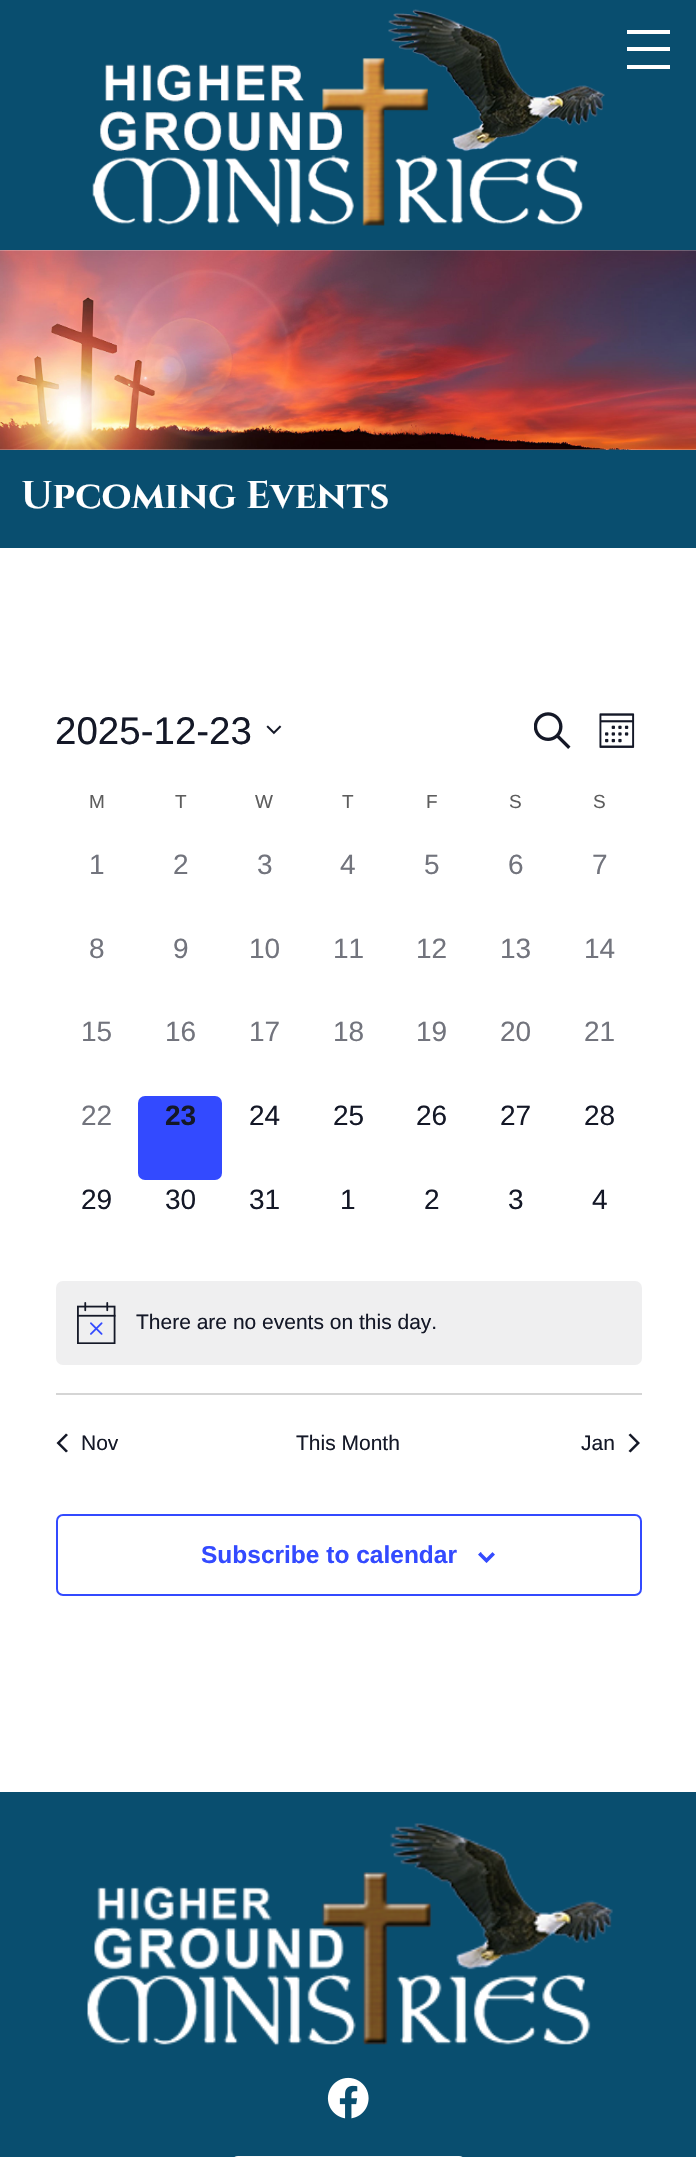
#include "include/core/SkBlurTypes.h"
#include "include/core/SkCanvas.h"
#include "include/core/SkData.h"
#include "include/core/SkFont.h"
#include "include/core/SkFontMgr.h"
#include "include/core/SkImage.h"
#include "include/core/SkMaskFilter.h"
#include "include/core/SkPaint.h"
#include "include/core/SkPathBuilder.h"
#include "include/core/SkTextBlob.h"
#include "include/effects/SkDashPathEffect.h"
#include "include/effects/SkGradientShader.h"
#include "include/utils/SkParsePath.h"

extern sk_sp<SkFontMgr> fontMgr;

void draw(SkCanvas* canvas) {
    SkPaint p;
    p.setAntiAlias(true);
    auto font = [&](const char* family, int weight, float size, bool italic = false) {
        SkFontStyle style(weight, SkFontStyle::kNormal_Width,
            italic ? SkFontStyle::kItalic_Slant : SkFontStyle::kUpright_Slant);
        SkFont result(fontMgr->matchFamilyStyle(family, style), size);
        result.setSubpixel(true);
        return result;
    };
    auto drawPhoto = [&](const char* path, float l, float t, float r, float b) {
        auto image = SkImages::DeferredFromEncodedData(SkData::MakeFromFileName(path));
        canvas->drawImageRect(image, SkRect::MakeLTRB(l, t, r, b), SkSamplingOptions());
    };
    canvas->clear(0xFFFFFFFF);
    p.setColor(0xFF094E6F);
    canvas->drawRect(SkRect::MakeLTRB(0, 0, 696, 250), p);
    drawPhoto("media/1.png", 92, 9, 605, 227);
    {
        const struct { float l, t, r, b; SkColor color; } items[] = {
            {627, 30, 670, 34, 0xFFFFFFFF},
            {627, 47, 670, 51, 0xFFFFFFFF},
            {627, 65, 670, 69, 0xFFFFFFFF},
        };
        for (auto [l, t, r, b, color] : items) {
            p.setColor(color);
            canvas->drawRect(SkRect::MakeLTRB(l, t, r, b), p);
        }
    }
    drawPhoto("media/2.png", 0, 250, 696, 450);
    p.setColor(0xFF094E6F);
    canvas->drawRect(SkRect::MakeLTRB(0, 450, 696, 548), p);
    auto font1 = font("Cinzel", 700, 38.5f);
    p.setColor(0xFFFFFFFF);
    canvas->drawString("Upcoming Events", 21, 508, font1, p);
    auto font2 = font("Liberation Sans", 400, 38.5f);
    p.setColor(0xFF141827);
    canvas->drawString("2025-12-23", 55, 744, font2, p);
    drawPhoto("media/3.png", 266, 725, 282, 735);
    drawPhoto("media/4.png", 534, 712, 571, 749);
    drawPhoto("media/5.png", 599, 713, 635, 748);
    auto font3 = font("Liberation Sans", 400, 19);
    p.setColor(0xFF5D5D5D);
    {
        const struct { const char* s; float x, y; } items[] = {
            {"M", 89, 808},
            {"T", 175, 808},
            {"W", 255, 808},
            {"T", 342, 808},
            {"F", 426, 808},
            {"S", 509, 808},
            {"S", 593, 808},
        };
        for (auto [s, x, y] : items) {
            canvas->drawString(s, x, y, font3, p);
        }
    }
    auto font4 = font("Liberation Sans", 400, 28);
    p.setColor(0xFF72747D);
    {
        const struct { const char* s; float x, y; } items[] = {
            {"1", 89, 874},
            {"2", 173, 874},
            {"3", 257, 874},
            {"4", 340, 874},
            {"5", 424, 874},
            {"6", 508, 874},
            {"7", 592, 874},
            {"8", 89, 958},
            {"9", 173, 958},
            {"10", 249, 958},
            {"11", 333, 958},
            {"12", 416, 958},
            {"13", 500, 958},
            {"14", 584, 958},
            {"15", 81, 1041},
            {"16", 165, 1041},
            {"17", 249, 1041},
            {"18", 333, 1041},
            {"19", 416, 1041},
            {"20", 500, 1041},
            {"21", 584, 1041},
            {"22", 81, 1125},
        };
        for (auto [s, x, y] : items) {
            canvas->drawString(s, x, y, font4, p);
        }
    }
    p.setColor(0xFF334AFF);
    canvas->drawRoundRect(SkRect::MakeLTRB(138, 1096, 222, 1180), 7, 7, p);
    auto font5 = font("Liberation Sans", 700, 28);
    p.setColor(0xFF141827);
    canvas->drawString("23", 165, 1125, font5, p);
    {
        const struct { const char* s; float x, y; } items[] = {
            {"24", 249, 1125},
            {"25", 333, 1125},
            {"26", 416, 1125},
            {"27", 500, 1125},
            {"28", 584, 1125},
            {"29", 81, 1209},
            {"30", 165, 1209},
            {"31", 249, 1209},
            {"1", 340, 1209},
            {"2", 424, 1209},
            {"3", 508, 1209},
            {"4", 592, 1209},
        };
        for (auto [s, x, y] : items) {
            canvas->drawString(s, x, y, font4, p);
        }
    }
    p.setColor(0xFFEFEFF0);
    canvas->drawRoundRect(SkRect::MakeLTRB(56, 1281, 642, 1365), 7, 7, p);
    drawPhoto("media/6.png", 77, 1302, 116, 1344);
    auto font6 = font("Liberation Sans", 400, 21);
    p.setColor(0xFF141827);
    canvas->drawString("There are no events on this day.", 136, 1329, font6, p);
    p.setColor(0xFFD5D5D5);
    canvas->drawRect(SkRect::MakeLTRB(56, 1393, 642, 1395), p);
    p.setColor(0xFF141827);
    canvas->drawPath(SkPathBuilder().moveTo(68, 1451).lineTo(66, 1452.5f).lineTo(56.5f, 1443).lineTo(66, 1433.5f).lineTo(68, 1435).lineTo(60, 1443).close().detach(), p);
    {
        const struct { const char* s; float x, y; } items[] = {
            {"Nov", 81, 1450},
            {"This Month", 296, 1450},
            {"Jan", 581, 1450},
        };
        for (auto [s, x, y] : items) {
            canvas->drawString(s, x, y, font6, p);
        }
    }
    canvas->drawPath(SkPathBuilder().moveTo(628.5f, 1435).lineTo(630.5f, 1433.5f).lineTo(640, 1443).lineTo(630.5f, 1452.5f).lineTo(628.5f, 1451).lineTo(636.5f, 1443).close().detach(), p);
    p.setStyle(SkPaint::kStroke_Style);
    p.setStrokeWidth(2);
    p.setColor(0xFF334AFF);
    canvas->drawRoundRect(SkRect::MakeLTRB(57, 1515, 641, 1595), 6, 6, p);
    auto font7 = font("Liberation Sans", 700, 24.5f);
    p.setStyle(SkPaint::kFill_Style);
    canvas->drawString("Subscribe to calendar", 201, 1563, font7, p);
    drawPhoto("media/7.png", 478, 1552, 495, 1563);
    p.setColor(0xFF094E6F);
    canvas->drawRect(SkRect::MakeLTRB(0, 1792, 696, 2157), p);
    drawPhoto("media/8.png", 87, 1823, 613, 2046);
    drawPhoto("media/9.png", 327, 2077, 369, 2119);
    p.setStyle(SkPaint::kStroke_Style);
    p.setColor(0xFFF8F9FA);
    canvas->drawRoundRect(SkRect::MakeLTRB(232, 2157, 465, 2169), 10, 10, p);
}
